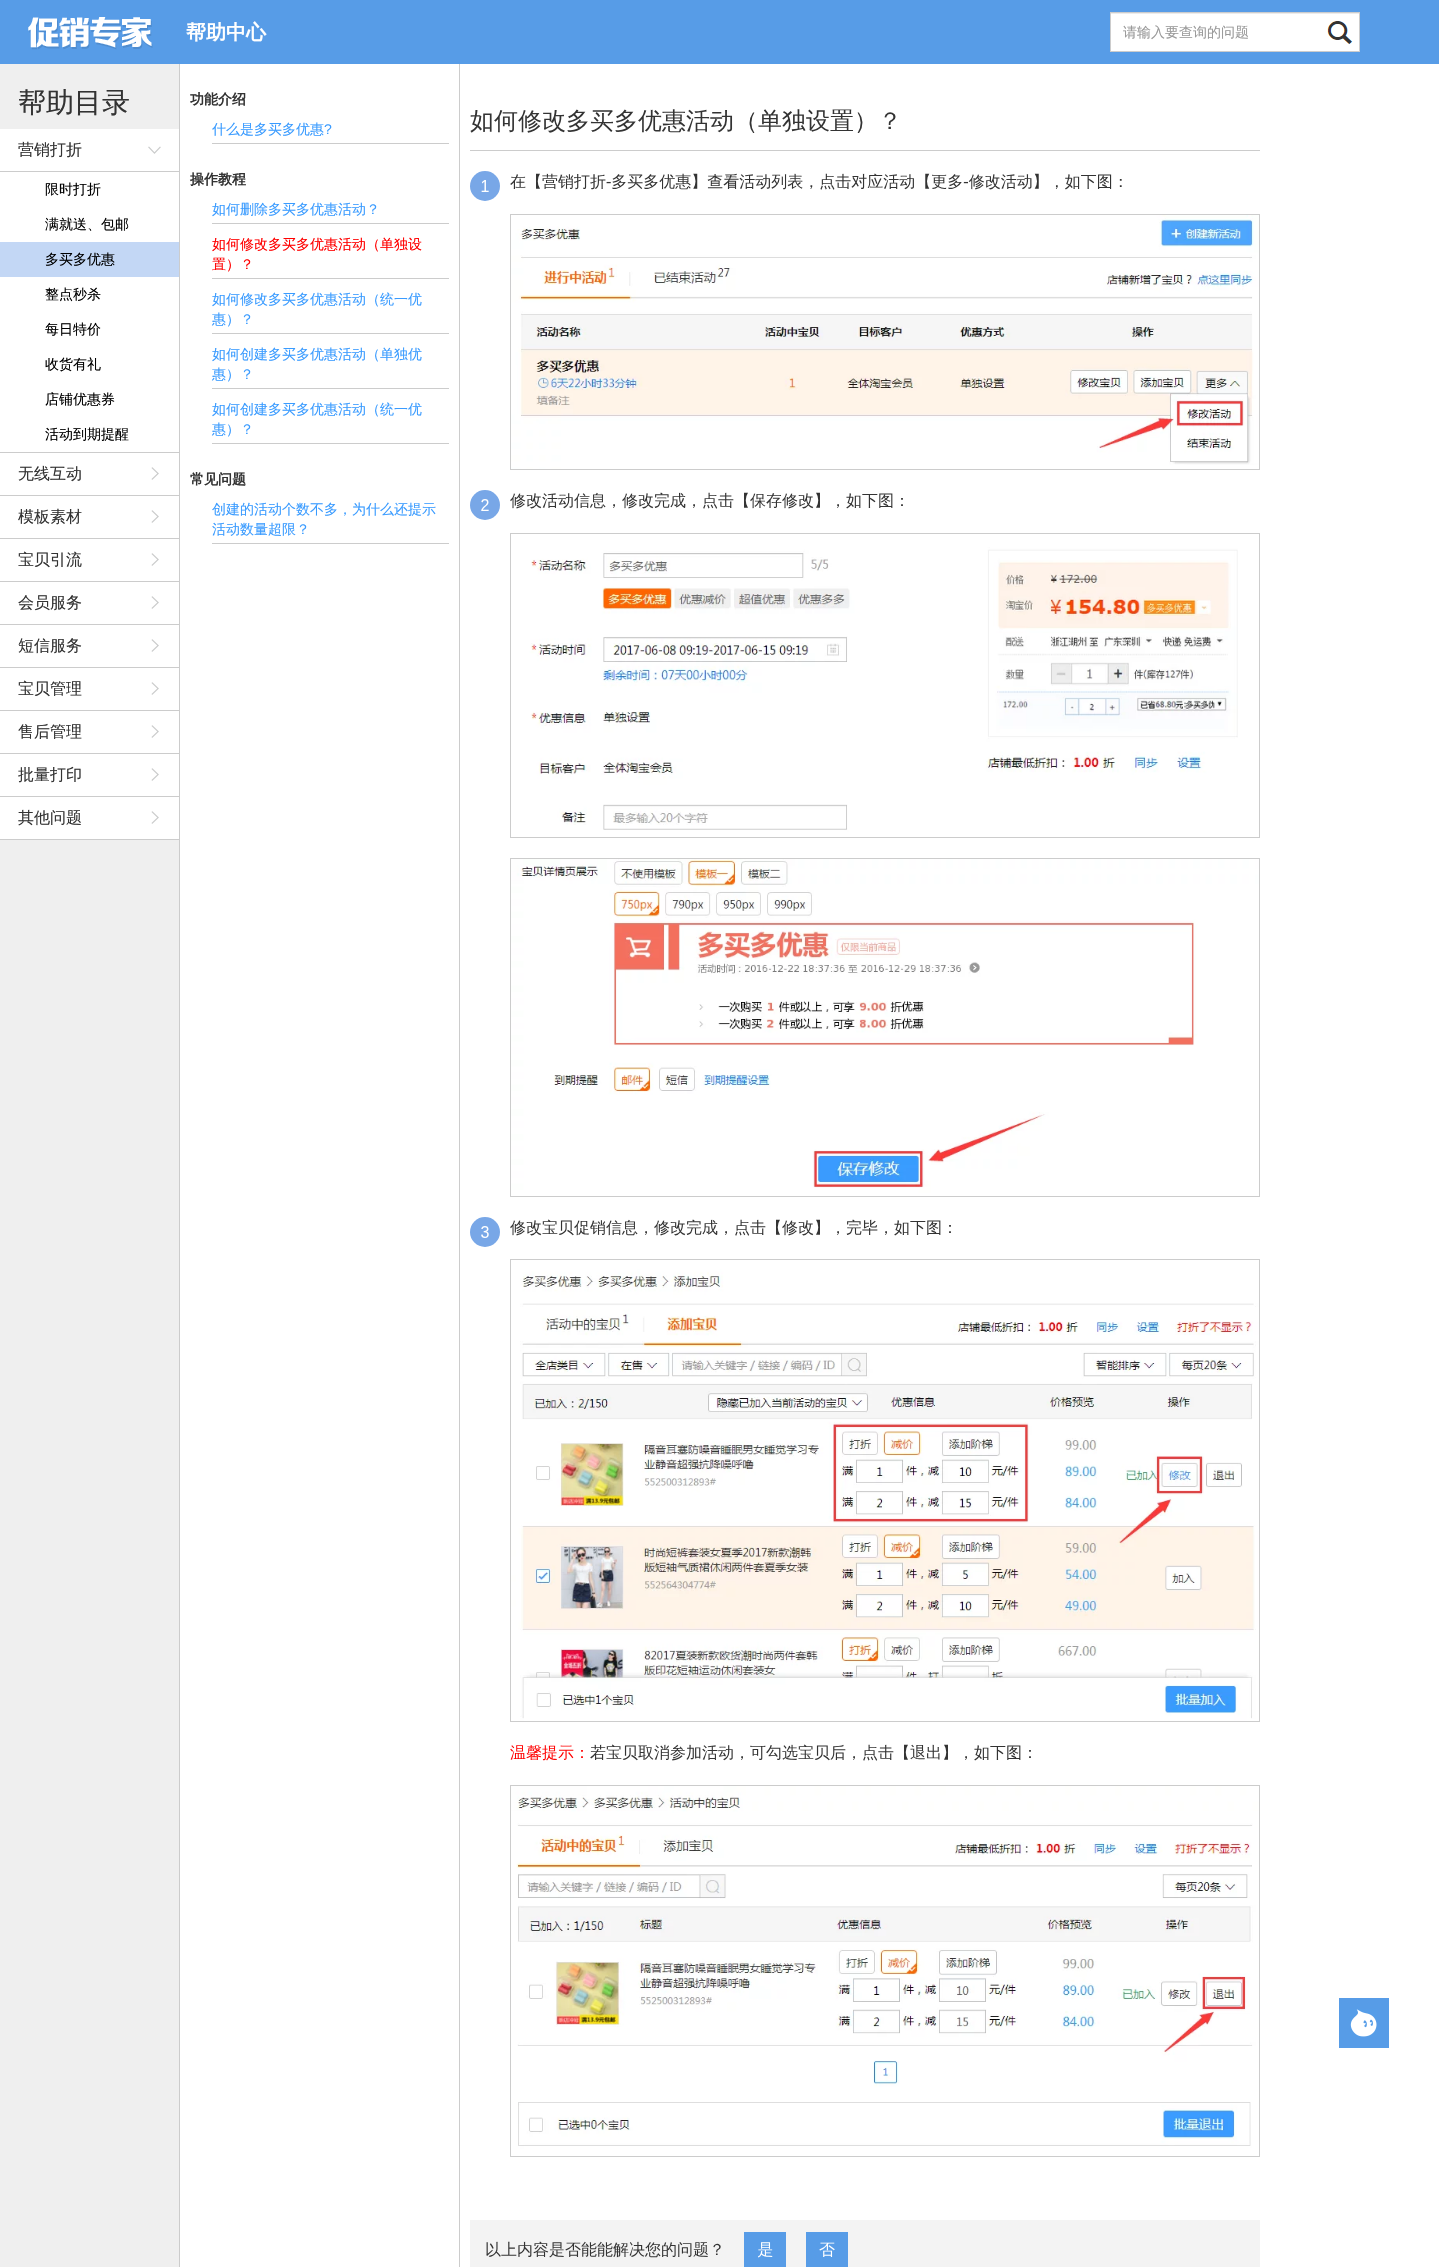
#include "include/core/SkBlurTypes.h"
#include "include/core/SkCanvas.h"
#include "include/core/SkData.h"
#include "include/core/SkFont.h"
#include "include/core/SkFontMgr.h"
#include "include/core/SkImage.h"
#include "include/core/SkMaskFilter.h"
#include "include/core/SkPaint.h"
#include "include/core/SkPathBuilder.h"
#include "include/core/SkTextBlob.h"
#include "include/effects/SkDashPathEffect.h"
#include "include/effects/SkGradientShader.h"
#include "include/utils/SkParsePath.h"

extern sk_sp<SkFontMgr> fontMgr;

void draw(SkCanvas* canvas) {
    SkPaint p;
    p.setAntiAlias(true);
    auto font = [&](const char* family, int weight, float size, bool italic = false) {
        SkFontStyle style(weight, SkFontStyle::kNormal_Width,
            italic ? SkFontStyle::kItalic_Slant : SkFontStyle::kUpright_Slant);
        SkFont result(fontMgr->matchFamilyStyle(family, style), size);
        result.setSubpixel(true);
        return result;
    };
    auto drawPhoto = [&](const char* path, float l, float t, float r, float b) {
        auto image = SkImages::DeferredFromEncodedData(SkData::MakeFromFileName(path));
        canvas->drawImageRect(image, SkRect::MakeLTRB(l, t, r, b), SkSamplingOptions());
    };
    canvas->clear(0xFFFFFFFF);
    p.setColor(0xFF579CE7);
    canvas->drawRect(SkRect::MakeLTRB(0, 0, 1439, 64), p);
    drawPhoto("media/1.png", 28, 17, 153, 50);
    auto font1 = font("WenQuanYi Zen Hei", 700, 20);
    p.setColor(0xFFFFFFFF);
    canvas->drawString("帮助中心", 186, 39, font1, p);
    canvas->drawRect(SkRect::MakeLTRB(1111, 14, 1359, 51), p);
    p.setColor(0xFFECECEC);
    canvas->drawRect(SkRect::MakeLTRB(1111, 13, 1359, 14), p);
    p.setStyle(SkPaint::kStroke_Style);
    p.setStrokeWidth(1);
    p.setColor(0xFFCCCCCC);
    canvas->drawRect(SkRect::MakeLTRB(1110.5f, 12.5f, 1359.5f, 51.5f), p);
    auto font2 = font("WenQuanYi Zen Hei", 500, 14);
    p.setStyle(SkPaint::kFill_Style);
    p.setColor(0xFF999999);
    canvas->drawString("请输入要查询的问题", 1123, 37, font2, p);
    drawPhoto("media/2.png", 1327, 21, 1353, 44);
    p.setColor(0xFFEFEFEF);
    canvas->drawRect(SkRect::MakeLTRB(0, 64, 179, 2267), p);
    p.setColor(0xFFCCCCCC);
    canvas->drawRect(SkRect::MakeLTRB(179, 64, 180, 2267), p);
    auto font3 = font("WenQuanYi Zen Hei", 500, 28);
    p.setColor(0xFF333333);
    canvas->drawString("帮助目录", 18, 112, font3, p);
    p.setColor(0xFFFFFFFF);
    canvas->drawRect(SkRect::MakeLTRB(0, 129, 179, 839), p);
    p.setColor(0xFFCCCCCC);
    canvas->drawRect(SkRect::MakeLTRB(0, 171, 179, 172), p);
    auto font4 = font("WenQuanYi Zen Hei", 500, 16);
    p.setColor(0xFF333333);
    canvas->drawString("营销打折", 18, 155, font4, p);
    drawPhoto("media/3.png", 148, 146, 161, 154);
    p.setColor(0xFFCCCCCC);
    canvas->drawRect(SkRect::MakeLTRB(0, 452, 179, 453), p);
    p.setColor(0xFF000000);
    canvas->drawString("限时打折", 45, 194, font2, p);
    canvas->drawString("满就送、包邮", 45, 229, font2, p);
    p.setColor(0xFFC3D7F5);
    canvas->drawRect(SkRect::MakeLTRB(0, 242, 179, 277), p);
    p.setColor(0xFF000000);
    {
        const struct { const char* s; float x, y; } items[] = {
            {"多买多优惠", 45, 264},
            {"整点秒杀", 45, 299},
            {"每日特价", 45, 334},
            {"收货有礼", 45, 369},
            {"店铺优惠券", 45, 404},
            {"活动到期提醒", 45, 439},
        };
        for (auto [s, x, y] : items) {
            canvas->drawString(s, x, y, font2, p);
        }
    }
    p.setColor(0xFFCCCCCC);
    canvas->drawRect(SkRect::MakeLTRB(0, 495, 179, 496), p);
    p.setColor(0xFF333333);
    canvas->drawString("无线互动", 18, 479, font4, p);
    drawPhoto("media/4.png", 151, 467, 159, 480);
    p.setColor(0xFFCCCCCC);
    canvas->drawRect(SkRect::MakeLTRB(0, 538, 179, 539), p);
    p.setColor(0xFF333333);
    canvas->drawString("模板素材", 18, 522, font4, p);
    drawPhoto("media/4.png", 151, 510, 159, 523);
    p.setColor(0xFFCCCCCC);
    canvas->drawRect(SkRect::MakeLTRB(0, 581, 179, 582), p);
    p.setColor(0xFF333333);
    canvas->drawString("宝贝引流", 18, 565, font4, p);
    drawPhoto("media/4.png", 151, 553, 159, 566);
    p.setColor(0xFFCCCCCC);
    canvas->drawRect(SkRect::MakeLTRB(0, 624, 179, 625), p);
    p.setColor(0xFF333333);
    canvas->drawString("会员服务", 18, 608, font4, p);
    drawPhoto("media/4.png", 151, 596, 159, 609);
    p.setColor(0xFFCCCCCC);
    canvas->drawRect(SkRect::MakeLTRB(0, 667, 179, 668), p);
    p.setColor(0xFF333333);
    canvas->drawString("短信服务", 18, 651, font4, p);
    drawPhoto("media/4.png", 151, 639, 159, 652);
    p.setColor(0xFFCCCCCC);
    canvas->drawRect(SkRect::MakeLTRB(0, 710, 179, 711), p);
    p.setColor(0xFF333333);
    canvas->drawString("宝贝管理", 18, 694, font4, p);
    drawPhoto("media/4.png", 151, 682, 159, 695);
    p.setColor(0xFFCCCCCC);
    canvas->drawRect(SkRect::MakeLTRB(0, 753, 179, 754), p);
    p.setColor(0xFF333333);
    canvas->drawString("售后管理", 18, 737, font4, p);
    drawPhoto("media/4.png", 151, 725, 159, 738);
    p.setColor(0xFFCCCCCC);
    canvas->drawRect(SkRect::MakeLTRB(0, 796, 179, 797), p);
    p.setColor(0xFF333333);
    canvas->drawString("批量打印", 18, 780, font4, p);
    drawPhoto("media/4.png", 151, 768, 159, 781);
    p.setColor(0xFFCCCCCC);
    canvas->drawRect(SkRect::MakeLTRB(0, 839, 179, 840), p);
    p.setColor(0xFF333333);
    canvas->drawString("其他问题", 18, 823, font4, p);
    drawPhoto("media/4.png", 151, 811, 159, 824);
    p.setColor(0xFFCCCCCC);
    canvas->drawRect(SkRect::MakeLTRB(459, 64, 460, 2267), p);
    auto font5 = font("WenQuanYi Zen Hei", 700, 14);
    p.setColor(0xFF333333);
    canvas->drawString("功能介绍", 190, 104, font5, p);
    p.setColor(0xFFCCCCCC);
    canvas->drawRect(SkRect::MakeLTRB(212, 143, 449, 144), p);
    p.setColor(0xFF399BFF);
    canvas->drawString("什么是多买多优惠", 212, 134, font2, p);
    auto font6 = font("Liberation Sans", 400, 14);
    canvas->drawString("?", 324, 134, font6, p);
    p.setColor(0xFF333333);
    canvas->drawString("操作教程", 190, 184, font5, p);
    p.setColor(0xFFCCCCCC);
    canvas->drawRect(SkRect::MakeLTRB(212, 223, 449, 224), p);
    p.setColor(0xFF399BFF);
    canvas->drawString("如何删除多买多优惠活动？", 212, 214, font2, p);
    p.setColor(0xFFCCCCCC);
    canvas->drawRect(SkRect::MakeLTRB(212, 278, 449, 279), p);
    p.setColor(0xFFFF0000);
    canvas->drawString("如何修改多买多优惠活动（单独设", 212, 249, font2, p);
    canvas->drawString("置）？", 212, 269, font2, p);
    p.setColor(0xFFCCCCCC);
    canvas->drawRect(SkRect::MakeLTRB(212, 333, 449, 334), p);
    p.setColor(0xFF399BFF);
    canvas->drawString("如何修改多买多优惠活动（统一优", 212, 304, font2, p);
    canvas->drawString("惠）？", 212, 324, font2, p);
    p.setColor(0xFFCCCCCC);
    canvas->drawRect(SkRect::MakeLTRB(212, 388, 449, 389), p);
    p.setColor(0xFF399BFF);
    canvas->drawString("如何创建多买多优惠活动（单独优", 212, 359, font2, p);
    canvas->drawString("惠）？", 212, 379, font2, p);
    p.setColor(0xFFCCCCCC);
    canvas->drawRect(SkRect::MakeLTRB(212, 443, 449, 444), p);
    p.setColor(0xFF399BFF);
    canvas->drawString("如何创建多买多优惠活动（统一优", 212, 414, font2, p);
    canvas->drawString("惠）？", 212, 434, font2, p);
    p.setColor(0xFF333333);
    canvas->drawString("常见问题", 190, 484, font5, p);
    p.setColor(0xFFCCCCCC);
    canvas->drawRect(SkRect::MakeLTRB(212, 543, 449, 544), p);
    p.setColor(0xFF399BFF);
    canvas->drawString("创建的活动个数不多，为什么还提示", 212, 514, font2, p);
    canvas->drawString("活动数量超限？", 212, 534, font2, p);
    drawPhoto("media/5.png", 470, 109, 1260, 2267);
    p.setColor(0xFF579CE7);
    canvas->drawRect(SkRect::MakeLTRB(1339, 1998, 1389, 2048), p);
    drawPhoto("media/6.png", 1350, 2009, 1377, 2037);
}
